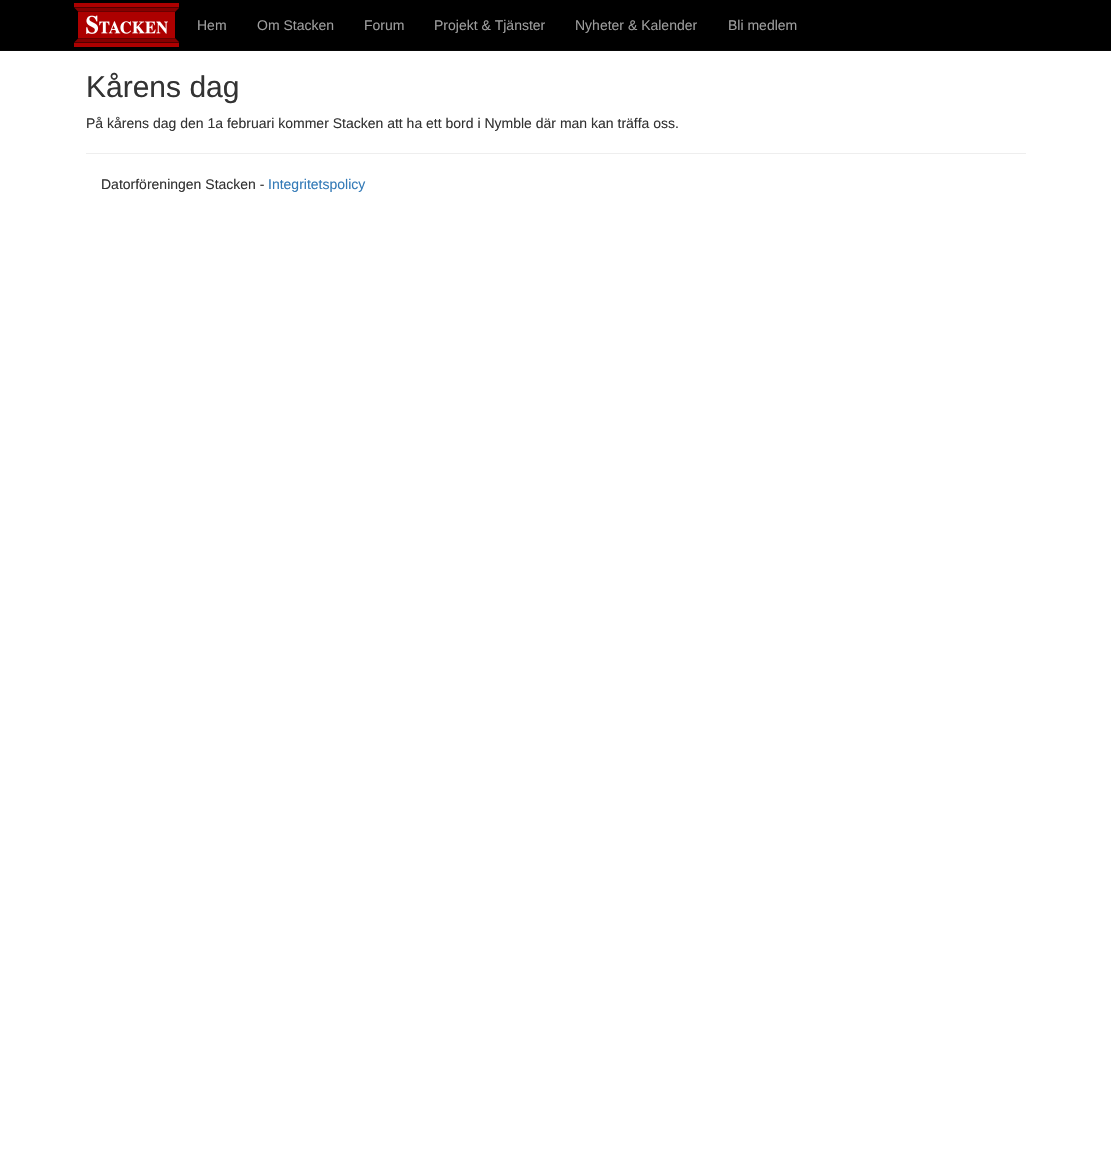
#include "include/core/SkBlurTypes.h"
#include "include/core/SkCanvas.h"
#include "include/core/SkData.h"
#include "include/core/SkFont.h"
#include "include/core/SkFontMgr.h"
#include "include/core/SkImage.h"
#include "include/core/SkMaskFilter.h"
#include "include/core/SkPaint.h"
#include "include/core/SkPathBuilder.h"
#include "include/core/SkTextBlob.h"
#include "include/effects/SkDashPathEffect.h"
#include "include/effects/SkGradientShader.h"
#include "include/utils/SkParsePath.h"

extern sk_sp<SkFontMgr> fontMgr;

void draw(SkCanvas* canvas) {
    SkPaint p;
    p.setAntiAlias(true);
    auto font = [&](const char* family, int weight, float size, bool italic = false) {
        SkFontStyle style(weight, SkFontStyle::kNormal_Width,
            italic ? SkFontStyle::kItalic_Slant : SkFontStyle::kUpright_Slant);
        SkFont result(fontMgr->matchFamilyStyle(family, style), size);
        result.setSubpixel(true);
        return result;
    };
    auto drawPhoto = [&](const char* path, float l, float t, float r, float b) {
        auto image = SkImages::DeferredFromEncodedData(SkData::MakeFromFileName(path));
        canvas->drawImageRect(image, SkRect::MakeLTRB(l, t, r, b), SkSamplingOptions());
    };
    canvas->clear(0xFFFFFFFF);
    p.setColor(0xFF000000);
    canvas->drawRect(SkRect::MakeLTRB(0, 0, 1111, 50), p);
    p.setColor(0xFF080808);
    canvas->drawRect(SkRect::MakeLTRB(0, 50, 1111, 51), p);
    drawPhoto("media/1.png", 74, 3, 179, 47);
    auto font1 = font("Liberation Sans", 400, 14);
    p.setColor(0xFF9D9D9D);
    {
        const struct { const char* s; float x, y; } items[] = {
            {"Hem", 197, 30},
            {"Om Stacken", 257, 30},
            {"Forum", 364, 30},
            {"Projekt & Tjänster", 434, 30},
            {"Nyheter & Kalender", 575, 30},
            {"Bli medlem", 728, 30},
        };
        for (auto [s, x, y] : items) {
            canvas->drawString(s, x, y, font1, p);
        }
    }
    auto font2 = font("Liberation Sans", 400, 30);
    p.setColor(0xFF333333);
    canvas->drawString("Kårens dag", 86, 97, font2, p);
    canvas->drawString("På kårens dag den 1a februari kommer Stacken att ha ett bord i Nymble där man kan träffa oss.", 86, 128, font1, p);
    p.setColor(0xFFEEEEEE);
    canvas->drawRect(SkRect::MakeLTRB(86, 153, 1026, 154), p);
    p.setColor(0xFF333333);
    canvas->drawString("Datorföreningen Stacken -", 101, 189, font1, p);
    p.setColor(0xFF337AB7);
    canvas->drawString("Integritetspolicy", 268, 189, font1, p);
}
